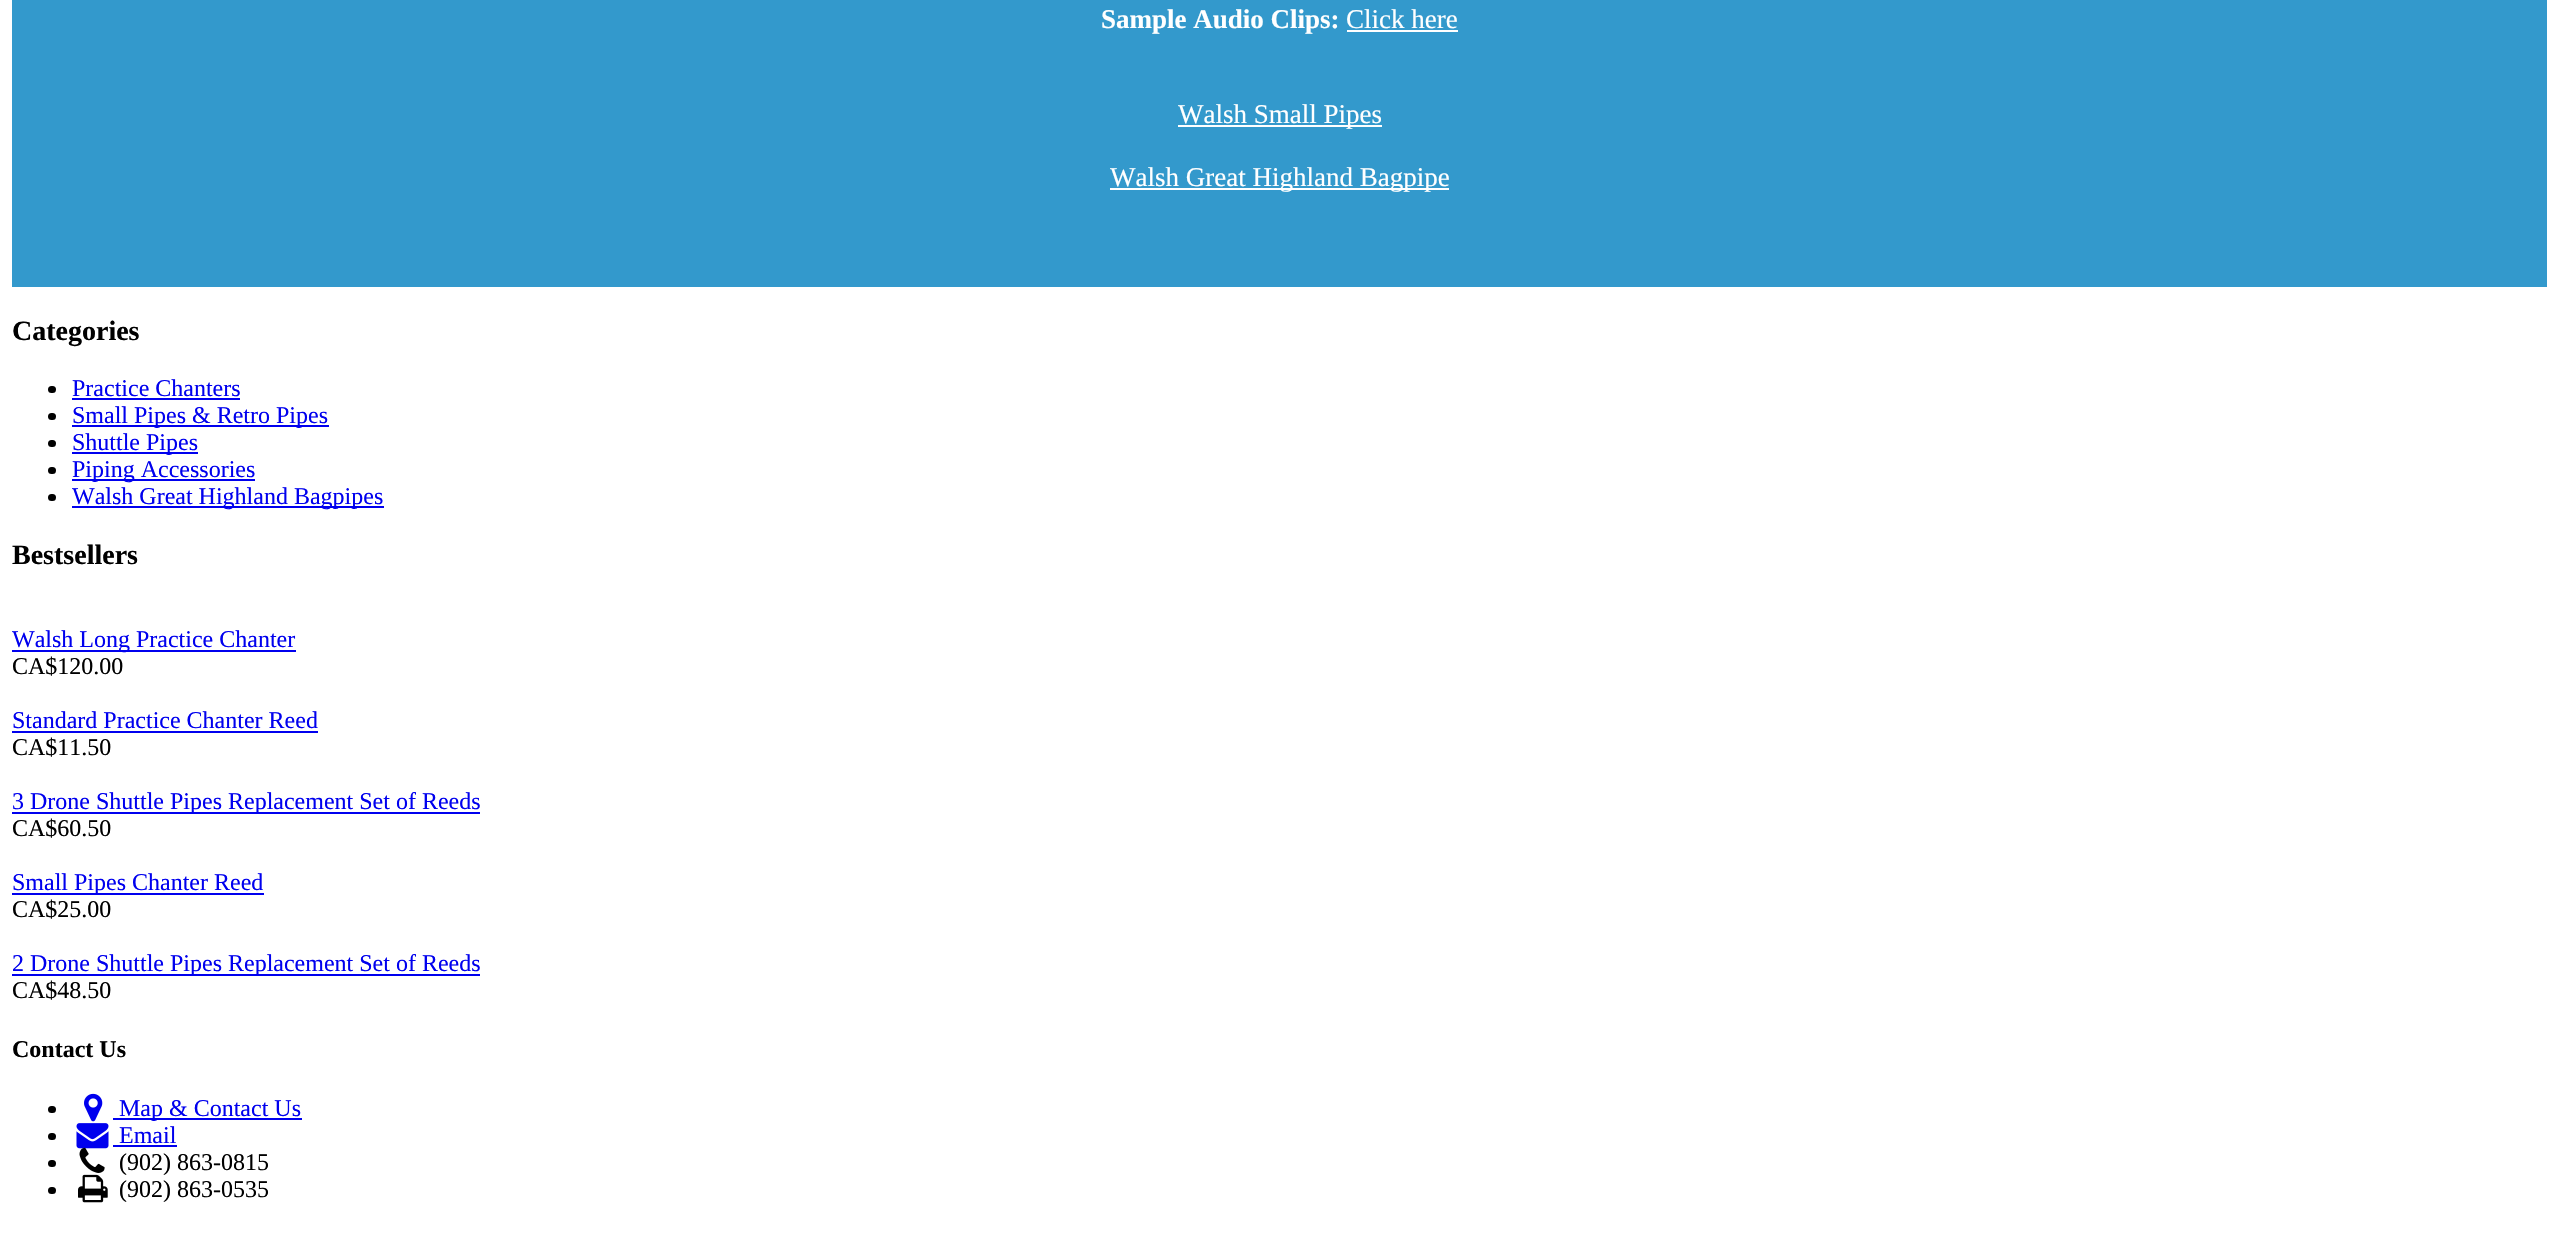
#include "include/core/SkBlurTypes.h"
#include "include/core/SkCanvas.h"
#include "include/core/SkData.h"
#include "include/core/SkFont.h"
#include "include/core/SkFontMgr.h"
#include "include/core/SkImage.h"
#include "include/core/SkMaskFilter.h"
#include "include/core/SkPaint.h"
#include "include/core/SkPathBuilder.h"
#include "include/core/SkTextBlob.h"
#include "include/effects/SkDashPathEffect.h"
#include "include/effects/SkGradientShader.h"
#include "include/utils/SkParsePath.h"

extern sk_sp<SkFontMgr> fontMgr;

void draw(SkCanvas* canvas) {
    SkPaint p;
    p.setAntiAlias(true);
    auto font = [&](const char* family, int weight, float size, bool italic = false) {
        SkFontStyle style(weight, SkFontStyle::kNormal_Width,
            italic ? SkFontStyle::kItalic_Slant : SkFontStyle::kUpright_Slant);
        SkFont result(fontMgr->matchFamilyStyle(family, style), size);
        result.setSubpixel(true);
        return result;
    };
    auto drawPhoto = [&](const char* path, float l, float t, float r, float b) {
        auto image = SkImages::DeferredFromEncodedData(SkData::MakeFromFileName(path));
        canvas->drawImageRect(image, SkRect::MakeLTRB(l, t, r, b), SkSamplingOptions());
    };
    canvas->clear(0xFFFFFFFF);
    p.setColor(0xFF3399CC);
    canvas->drawRect(SkRect::MakeLTRB(12, 0, 2547, 287), p);
    auto font1 = font("Liberation Serif", 700, 27);
    p.setColor(0xFFFFFFFF);
    canvas->drawString("Sample Audio Clips:", 1101, 28, font1, p);
    auto font2 = font("Liberation Serif", 400, 27);
    canvas->drawString("Click here", 1346, 28, font2, p);
    canvas->drawRect(SkRect::MakeLTRB(1347, 30, 1458, 32), p);
    canvas->drawRect(SkRect::MakeLTRB(1178, 125, 1382, 127), p);
    canvas->drawString("Walsh Small Pipes", 1178, 123, font2, p);
    canvas->drawRect(SkRect::MakeLTRB(1110, 188, 1449, 190), p);
    canvas->drawString("Walsh Great Highland Bagpipe", 1110, 186, font2, p);
    auto font3 = font("Liberation Serif", 700, 28);
    p.setColor(0xFF000000);
    canvas->drawString("Categories", 12, 340, font3, p);
    canvas->drawRoundRect(SkRect::MakeLTRB(48, 386, 56, 393), 3.5f, 3.5f, p);
    auto font4 = font("Liberation Serif", 400, 24);
    p.setColor(0xFF0000EE);
    canvas->drawString("Practice Chanters", 72, 396, font4, p);
    canvas->drawRect(SkRect::MakeLTRB(72, 398, 240, 400), p);
    p.setColor(0xFF000000);
    canvas->drawRoundRect(SkRect::MakeLTRB(48, 413, 56, 420), 3.5f, 3.5f, p);
    p.setColor(0xFF0000EE);
    canvas->drawRect(SkRect::MakeLTRB(72, 425, 329, 427), p);
    canvas->drawString("Small Pipes & Retro Pipes", 72, 423, font4, p);
    p.setColor(0xFF000000);
    canvas->drawRoundRect(SkRect::MakeLTRB(48, 440, 56, 447), 3.5f, 3.5f, p);
    p.setColor(0xFF0000EE);
    canvas->drawRect(SkRect::MakeLTRB(72, 452, 198, 454), p);
    canvas->drawString("Shuttle Pipes", 72, 450, font4, p);
    p.setColor(0xFF000000);
    canvas->drawRoundRect(SkRect::MakeLTRB(48, 467, 56, 474), 3.5f, 3.5f, p);
    p.setColor(0xFF0000EE);
    canvas->drawRect(SkRect::MakeLTRB(72, 479, 255, 481), p);
    canvas->drawString("Piping Accessories", 72, 477, font4, p);
    p.setColor(0xFF000000);
    canvas->drawRoundRect(SkRect::MakeLTRB(48, 494, 56, 501), 3.5f, 3.5f, p);
    p.setColor(0xFF0000EE);
    canvas->drawRect(SkRect::MakeLTRB(72, 506, 384, 508), p);
    canvas->drawString("Walsh Great Highland Bagpipes", 72, 504, font4, p);
    p.setColor(0xFF000000);
    canvas->drawString("Bestsellers", 12, 564, font3, p);
    p.setColor(0xFF0000EE);
    canvas->drawRect(SkRect::MakeLTRB(12, 650, 296, 652), p);
    canvas->drawString("Walsh Long Practice Chanter", 12, 647, font4, p);
    p.setColor(0xFF000000);
    canvas->drawString("CA$120.00", 12, 674, font4, p);
    p.setColor(0xFF0000EE);
    canvas->drawString("Standard Practice Chanter Reed", 12, 728, font4, p);
    canvas->drawRect(SkRect::MakeLTRB(12, 731, 318, 733), p);
    p.setColor(0xFF000000);
    canvas->drawString("CA$11.50", 12, 755, font4, p);
    p.setColor(0xFF0000EE);
    canvas->drawRect(SkRect::MakeLTRB(12, 812, 480, 814), p);
    canvas->drawString("3 Drone Shuttle Pipes Replacement Set of Reeds", 12, 809, font4, p);
    p.setColor(0xFF000000);
    canvas->drawString("CA$60.50", 12, 836, font4, p);
    p.setColor(0xFF0000EE);
    canvas->drawRect(SkRect::MakeLTRB(12, 893, 264, 895), p);
    canvas->drawString("Small Pipes Chanter Reed", 12, 890, font4, p);
    p.setColor(0xFF000000);
    canvas->drawString("CA$25.00", 12, 917, font4, p);
    p.setColor(0xFF0000EE);
    canvas->drawRect(SkRect::MakeLTRB(12, 974, 480, 976), p);
    canvas->drawString("2 Drone Shuttle Pipes Replacement Set of Reeds", 12, 971, font4, p);
    p.setColor(0xFF000000);
    canvas->drawString("CA$48.50", 12, 998, font4, p);
    auto font5 = font("Liberation Serif", 700, 24);
    canvas->drawString("Contact Us", 12, 1057, font5, p);
    canvas->drawRoundRect(SkRect::MakeLTRB(48, 1106, 56, 1113), 3.5f, 3.5f, p);
    drawPhoto("media/1.png", 84, 1093, 103, 1122);
    p.setColor(0xFF0000EE);
    canvas->drawRect(SkRect::MakeLTRB(113, 1118, 302, 1120), p);
    canvas->drawString("Map & Contact Us", 119, 1116, font4, p);
    p.setColor(0xFF000000);
    canvas->drawRoundRect(SkRect::MakeLTRB(48, 1133, 56, 1140), 3.5f, 3.5f, p);
    drawPhoto("media/2.png", 76, 1123, 109, 1149);
    p.setColor(0xFF0000EE);
    canvas->drawString("Email", 119, 1143, font4, p);
    canvas->drawRect(SkRect::MakeLTRB(113, 1145, 177, 1147), p);
    p.setColor(0xFF000000);
    canvas->drawRoundRect(SkRect::MakeLTRB(48, 1160, 56, 1167), 3.5f, 3.5f, p);
    drawPhoto("media/3.png", 79, 1147, 105, 1173);
    canvas->drawString("(902) 863-0815", 119, 1170, font4, p);
    canvas->drawRoundRect(SkRect::MakeLTRB(48, 1187, 56, 1194), 3.5f, 3.5f, p);
    drawPhoto("media/4.png", 78, 1174, 108, 1203);
    canvas->drawString("(902) 863-0535", 119, 1197, font4, p);
}
